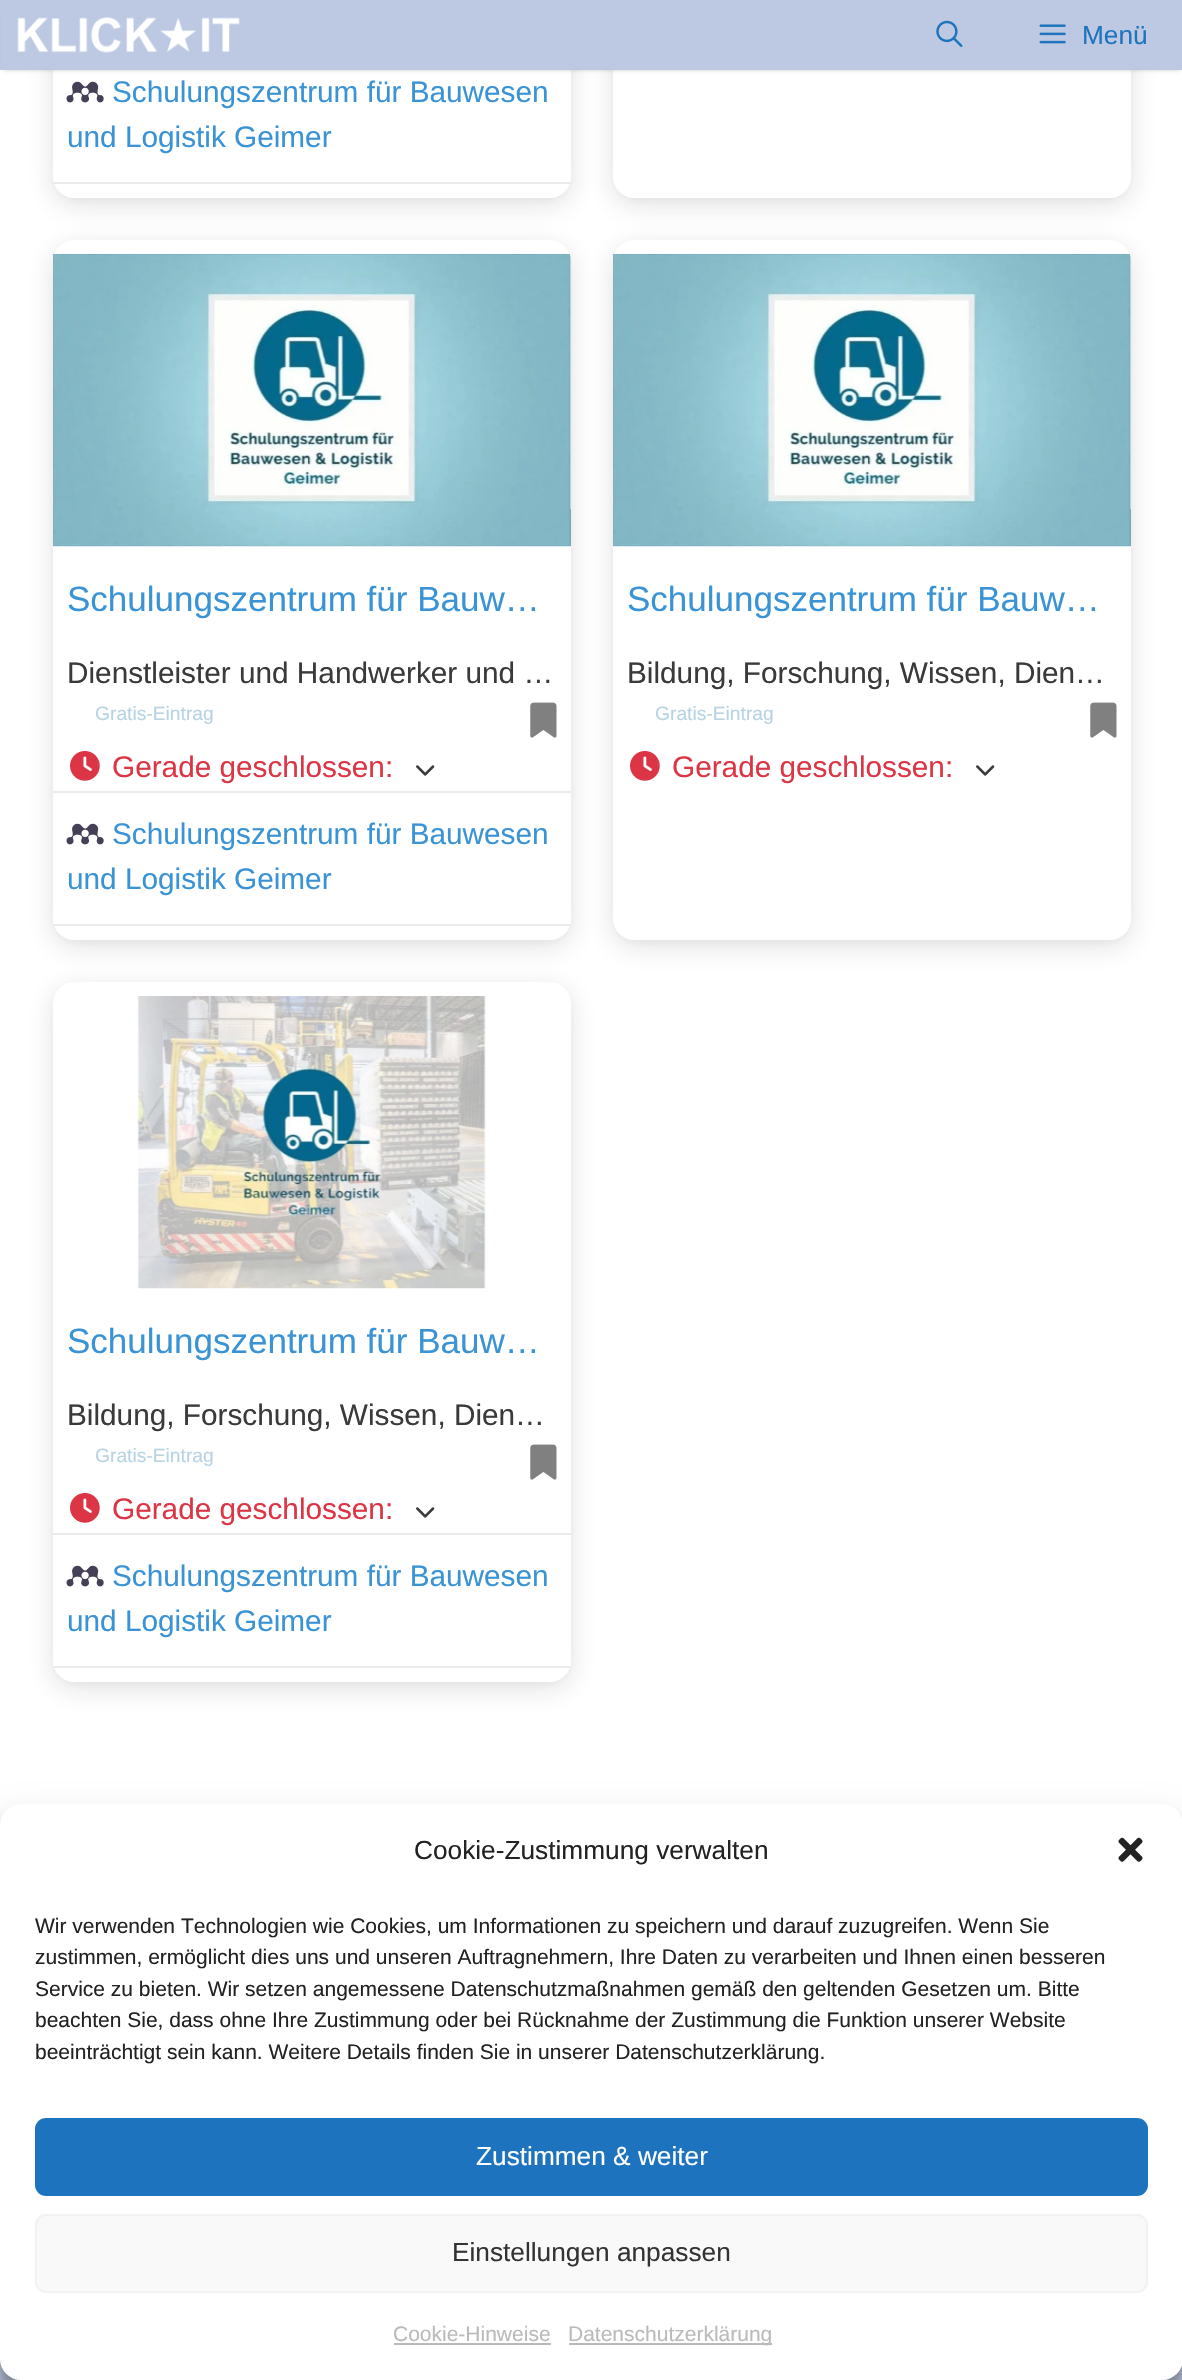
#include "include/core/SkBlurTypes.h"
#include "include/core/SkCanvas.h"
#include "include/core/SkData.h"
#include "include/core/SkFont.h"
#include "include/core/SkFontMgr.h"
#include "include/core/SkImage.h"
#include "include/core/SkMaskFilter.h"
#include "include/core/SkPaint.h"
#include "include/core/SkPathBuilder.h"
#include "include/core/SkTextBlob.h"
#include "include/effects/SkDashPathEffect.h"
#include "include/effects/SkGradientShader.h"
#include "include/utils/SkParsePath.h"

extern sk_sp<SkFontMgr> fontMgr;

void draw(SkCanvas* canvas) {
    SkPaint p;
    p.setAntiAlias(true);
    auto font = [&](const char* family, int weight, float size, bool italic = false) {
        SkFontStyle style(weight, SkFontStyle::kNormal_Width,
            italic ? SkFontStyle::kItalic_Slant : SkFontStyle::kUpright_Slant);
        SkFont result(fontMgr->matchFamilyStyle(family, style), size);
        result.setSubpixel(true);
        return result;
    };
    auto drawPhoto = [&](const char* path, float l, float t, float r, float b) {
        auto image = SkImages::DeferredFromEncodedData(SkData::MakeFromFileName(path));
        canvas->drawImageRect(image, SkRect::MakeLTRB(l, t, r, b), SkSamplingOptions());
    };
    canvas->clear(0xFFBDC9E2);
    p.setColor(0xFFFFFFFF);
    canvas->drawRect(SkRect::MakeLTRB(0, 70, 1182, 1825), p);
    p.setColor(0x1F1F1B2D);
    p.setMaskFilter(SkMaskFilter::MakeBlur(kNormal_SkBlurStyle, 14));
    canvas->drawRoundRect(SkRect::MakeLTRB(53, -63, 571, 205), 21, 21, p);
    p.setMaskFilter(nullptr);
    p.setMaskFilter(SkMaskFilter::MakeBlur(kNormal_SkBlurStyle, 7));
    canvas->drawRoundRect(SkRect::MakeLTRB(60, -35, 564, 194), 14, 14, p);
    p.setMaskFilter(nullptr);
    p.setColor(0xFFFFFFFF);
    canvas->drawRoundRect(SkRect::MakeLTRB(53, -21, 571, 198), 21, 21, p);
    canvas->drawRect(SkRect::MakeLTRB(53, 179, 571, 182), p);
    p.setColor(0xFFEBEBEB);
    canvas->drawRect(SkRect::MakeLTRB(53, 182, 571, 184), p);
    p.setColor(0x1F1F1B2D);
    p.setMaskFilter(SkMaskFilter::MakeBlur(kNormal_SkBlurStyle, 14));
    canvas->drawRoundRect(SkRect::MakeLTRB(613, -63, 1131, 205), 21, 21, p);
    p.setMaskFilter(nullptr);
    p.setMaskFilter(SkMaskFilter::MakeBlur(kNormal_SkBlurStyle, 7));
    canvas->drawRoundRect(SkRect::MakeLTRB(620, -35, 1124, 194), 14, 14, p);
    p.setMaskFilter(nullptr);
    p.setColor(0xFFFFFFFF);
    canvas->drawRoundRect(SkRect::MakeLTRB(613, -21, 1131, 198), 21, 21, p);
    p.setColor(0x33000000);
    p.setMaskFilter(SkMaskFilter::MakeBlur(kNormal_SkBlurStyle, 2));
    canvas->drawRect(SkRect::MakeLTRB(4, 7, 1180, 70), p);
    p.setMaskFilter(nullptr);
    p.setColor(0xFFBDC9E2);
    canvas->drawRect(SkRect::MakeLTRB(1, 0, 1182, 70), p);
    drawPhoto("media/1.png", 17, 17, 240, 53);
    drawPhoto("media/2.png", 936, 20, 963, 47);
    drawPhoto("media/3.png", 1039, 24, 1066, 44);
    auto font1 = font("Liberation Sans", 400, 26.25f);
    p.setColor(0xFF1E73BE);
    canvas->drawString("Menü", 1082, 44, font1, p);
    drawPhoto("media/4.png", 66, 81, 104, 103);
    auto font2 = font("Liberation Sans", 400, 29.75f);
    p.setColor(0xFF3993D5);
    canvas->drawString("Schulungszentrum für Bauwesen", 112, 102, font2, p);
    canvas->drawString("und Logistik Geimer", 67, 147, font2, p);
    p.setColor(0x1F1F1B2D);
    p.setMaskFilter(SkMaskFilter::MakeBlur(kNormal_SkBlurStyle, 14));
    canvas->drawRoundRect(SkRect::MakeLTRB(53, 247, 571, 947), 21, 21, p);
    p.setMaskFilter(nullptr);
    p.setMaskFilter(SkMaskFilter::MakeBlur(kNormal_SkBlurStyle, 7));
    canvas->drawRoundRect(SkRect::MakeLTRB(60, 250, 564, 936), 14, 14, p);
    p.setMaskFilter(nullptr);
    p.setColor(0xFFFFFFFF);
    canvas->drawRoundRect(SkRect::MakeLTRB(53, 240, 571, 940), 21, 21, p);
    drawPhoto("media/5.png", 53, 254, 571, 547);
    auto font3 = font("Liberation Sans", 400, 35);
    p.setColor(0xFF3993D5);
    canvas->drawString("Schulungszentrum für Bauw…", 67, 611, font3, p);
    p.setColor(0xFF3A3A3A);
    canvas->drawString("Dienstleister und Handwerker und …", 67, 683, font2, p);
    auto font4 = font("Liberation Sans", 400, 19.25f);
    p.setColor(0xFFB8D3E3);
    canvas->drawString("Gratis-Eintrag", 95, 720, font4, p);
    drawPhoto("media/6.png", 530, 702, 557, 738);
    drawPhoto("media/7.png", 70, 751, 100, 781);
    p.setColor(0xFFDC3545);
    canvas->drawString("Gerade geschlossen:", 112, 777, font2, p);
    drawPhoto("media/8.png", 416, 765, 435, 776);
    {
        const struct { float l, t, r, b; SkColor color; } items[] = {
            {53, 921, 571, 924, 0xFFFFFFFF},
            {53, 791, 571, 793, 0xFFEBEBEB},
            {53, 924, 571, 926, 0xFFEBEBEB},
        };
        for (auto [l, t, r, b, color] : items) {
            p.setColor(color);
            canvas->drawRect(SkRect::MakeLTRB(l, t, r, b), p);
        }
    }
    drawPhoto("media/4.png", 66, 823, 104, 845);
    p.setColor(0xFF3993D5);
    canvas->drawString("Schulungszentrum für Bauwesen", 112, 844, font2, p);
    canvas->drawString("und Logistik Geimer", 67, 889, font2, p);
    p.setColor(0x1F1F1B2D);
    p.setMaskFilter(SkMaskFilter::MakeBlur(kNormal_SkBlurStyle, 14));
    canvas->drawRoundRect(SkRect::MakeLTRB(613, 247, 1131, 947), 21, 21, p);
    p.setMaskFilter(nullptr);
    p.setMaskFilter(SkMaskFilter::MakeBlur(kNormal_SkBlurStyle, 7));
    canvas->drawRoundRect(SkRect::MakeLTRB(620, 250, 1124, 936), 14, 14, p);
    p.setMaskFilter(nullptr);
    p.setColor(0xFFFFFFFF);
    canvas->drawRoundRect(SkRect::MakeLTRB(613, 240, 1131, 940), 21, 21, p);
    drawPhoto("media/5.png", 613, 254, 1131, 547);
    p.setColor(0xFF3993D5);
    canvas->drawString("Schulungszentrum für Bauw…", 627, 611, font3, p);
    p.setColor(0xFF3A3A3A);
    canvas->drawString("Bildung, Forschung, Wissen, Dien…", 627, 683, font2, p);
    p.setColor(0xFFB8D3E3);
    canvas->drawString("Gratis-Eintrag", 655, 720, font4, p);
    drawPhoto("media/6.png", 1090, 702, 1117, 738);
    drawPhoto("media/7.png", 630, 751, 660, 781);
    p.setColor(0xFFDC3545);
    canvas->drawString("Gerade geschlossen:", 672, 777, font2, p);
    drawPhoto("media/8.png", 976, 765, 995, 776);
    p.setColor(0x1F1F1B2D);
    p.setMaskFilter(SkMaskFilter::MakeBlur(kNormal_SkBlurStyle, 14));
    canvas->drawRoundRect(SkRect::MakeLTRB(53, 989, 571, 1689), 21, 21, p);
    p.setMaskFilter(nullptr);
    p.setMaskFilter(SkMaskFilter::MakeBlur(kNormal_SkBlurStyle, 7));
    canvas->drawRoundRect(SkRect::MakeLTRB(60, 992, 564, 1678), 14, 14, p);
    p.setMaskFilter(nullptr);
    p.setColor(0xFFFFFFFF);
    canvas->drawRoundRect(SkRect::MakeLTRB(53, 982, 571, 1682), 21, 21, p);
    drawPhoto("media/9.png", 137, 996, 486, 1289);
    p.setColor(0xFF3993D5);
    canvas->drawString("Schulungszentrum für Bauw…", 67, 1353, font3, p);
    p.setColor(0xFF3A3A3A);
    canvas->drawString("Bildung, Forschung, Wissen, Dien…", 67, 1425, font2, p);
    p.setColor(0xFFB8D3E3);
    canvas->drawString("Gratis-Eintrag", 95, 1462, font4, p);
    drawPhoto("media/6.png", 530, 1444, 557, 1480);
    drawPhoto("media/7.png", 70, 1493, 100, 1523);
    p.setColor(0xFFDC3545);
    canvas->drawString("Gerade geschlossen:", 112, 1519, font2, p);
    drawPhoto("media/8.png", 416, 1507, 435, 1518);
    {
        const struct { float l, t, r, b; SkColor color; } items[] = {
            {53, 1663, 571, 1666, 0xFFFFFFFF},
            {53, 1533, 571, 1535, 0xFFEBEBEB},
            {53, 1666, 571, 1668, 0xFFEBEBEB},
        };
        for (auto [l, t, r, b, color] : items) {
            p.setColor(color);
            canvas->drawRect(SkRect::MakeLTRB(l, t, r, b), p);
        }
    }
    drawPhoto("media/4.png", 66, 1565, 104, 1587);
    p.setColor(0xFF3993D5);
    canvas->drawString("Schulungszentrum für Bauwesen", 112, 1586, font2, p);
    canvas->drawString("und Logistik Geimer", 67, 1631, font2, p);
    p.setColor(0x3B000000);
    p.setMaskFilter(SkMaskFilter::MakeBlur(kNormal_SkBlurStyle, 5));
    canvas->drawRoundRect(SkRect::MakeLTRB(0, 1815, 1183, 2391), 21, 21, p);
    p.setMaskFilter(nullptr);
    p.setColor(0x30000000);
    p.setMaskFilter(SkMaskFilter::MakeBlur(kNormal_SkBlurStyle, 17.5f));
    canvas->drawRoundRect(SkRect::MakeLTRB(0, 1822, 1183, 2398), 21, 21, p);
    p.setMaskFilter(nullptr);
    p.setColor(0xFFFFFFFF);
    canvas->drawRoundRect(SkRect::MakeLTRB(0, 1804, 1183, 2380), 21, 21, p);
    p.setColor(0xFF222222);
    canvas->drawString("Cookie-Zustimmung verwalten", 414, 1859, font1, p);
    drawPhoto("media/10.png", 1118, 1837, 1143, 1862);
    auto font5 = font("Liberation Sans", 400, 21);
    {
        const struct { const char* s; float x, y; } items[] = {
            {"Wir verwenden Technologien wie Cookies, um Informationen zu speichern und darauf zuzugreifen. Wenn Sie", 35, 1933},
            {"zustimmen, ermöglicht dies uns und unseren Auftragnehmern, Ihre Daten zu verarbeiten und Ihnen einen besseren", 35, 1964},
            {"Service zu bieten. Wir setzen angemessene Datenschutzmaßnahmen gemäß den geltenden Gesetzen um. Bitte", 35, 1996},
            {"beachten Sie, dass ohne Ihre Zustimmung oder bei Rücknahme der Zustimmung die Funktion unserer Website", 35, 2027},
            {"beeinträchtigt sein kann. Weitere Details finden Sie in unserer Datenschutzerklärung.", 35, 2059},
        };
        for (auto [s, x, y] : items) {
            canvas->drawString(s, x, y, font5, p);
        }
    }
    p.setColor(0xFF1E73BE);
    canvas->drawRoundRect(SkRect::MakeLTRB(36, 2119, 1147, 2195), 10, 10, p);
    p.setStyle(SkPaint::kStroke_Style);
    p.setStrokeWidth(2);
    canvas->drawRoundRect(SkRect::MakeLTRB(36, 2119, 1147, 2195), 10, 10, p);
    p.setStyle(SkPaint::kFill_Style);
    p.setColor(0xFFFFFFFF);
    canvas->drawString("Zustimmen & weiter", 476, 2165, font1, p);
    p.setColor(0xFFF9F9F9);
    canvas->drawRoundRect(SkRect::MakeLTRB(36, 2215, 1147, 2292), 10, 10, p);
    p.setStyle(SkPaint::kStroke_Style);
    p.setColor(0xFFF2F2F2);
    canvas->drawRoundRect(SkRect::MakeLTRB(36, 2215, 1147, 2292), 10, 10, p);
    p.setStyle(SkPaint::kFill_Style);
    p.setColor(0xFF333333);
    canvas->drawString("Einstellungen anpassen", 452, 2261, font1, p);
    p.setColor(0xFFBABABA);
    canvas->drawString("Cookie-Hinweise", 393, 2341, font5, p);
    canvas->drawRect(SkRect::MakeLTRB(394, 2343, 551, 2345), p);
    canvas->drawRect(SkRect::MakeLTRB(569, 2343, 772, 2345), p);
    canvas->drawString("Datenschutzerklärung", 568, 2341, font5, p);
}
